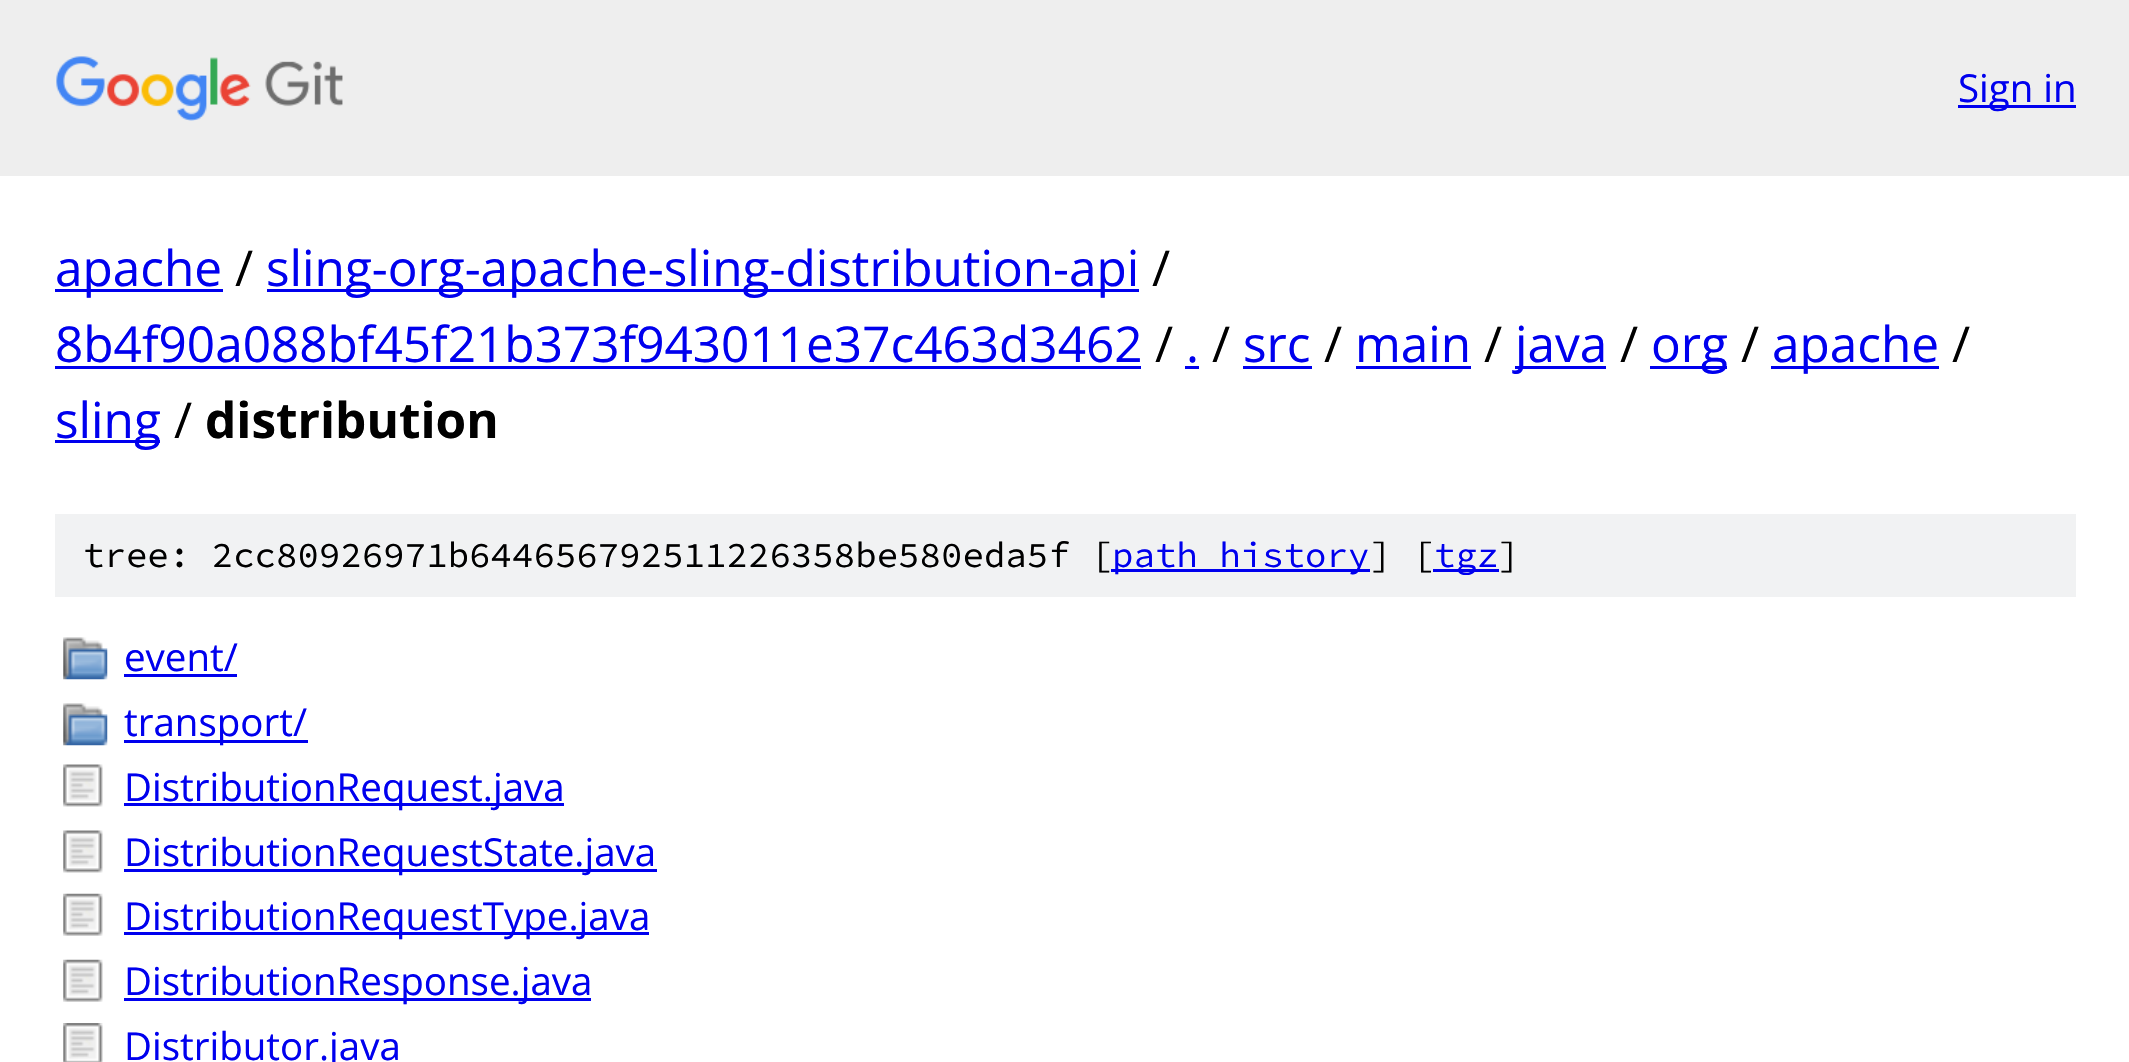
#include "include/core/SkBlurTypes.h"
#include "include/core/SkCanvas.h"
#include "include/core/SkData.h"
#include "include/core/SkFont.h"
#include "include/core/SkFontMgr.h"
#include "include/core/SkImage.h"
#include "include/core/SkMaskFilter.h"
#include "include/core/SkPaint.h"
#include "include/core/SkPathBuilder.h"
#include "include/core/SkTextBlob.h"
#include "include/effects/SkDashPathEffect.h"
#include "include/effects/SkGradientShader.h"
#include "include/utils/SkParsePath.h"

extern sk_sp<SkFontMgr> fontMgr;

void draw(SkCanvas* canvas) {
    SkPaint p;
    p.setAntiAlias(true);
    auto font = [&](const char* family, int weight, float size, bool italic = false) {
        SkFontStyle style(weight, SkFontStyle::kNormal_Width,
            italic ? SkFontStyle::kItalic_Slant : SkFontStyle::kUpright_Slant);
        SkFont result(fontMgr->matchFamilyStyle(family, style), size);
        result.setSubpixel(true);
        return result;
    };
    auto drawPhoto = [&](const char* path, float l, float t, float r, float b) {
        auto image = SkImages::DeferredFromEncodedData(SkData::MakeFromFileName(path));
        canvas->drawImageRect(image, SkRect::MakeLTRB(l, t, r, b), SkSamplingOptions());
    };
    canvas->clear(0xFFFFFFFF);
    p.setColor(0xFFEEEEEE);
    canvas->drawRect(SkRect::MakeLTRB(0, 0, 2129, 176), p);
    drawPhoto("media/1.png", 56, 56, 343, 121);
    p.setColor(0xFF0000EE);
    canvas->drawRect(SkRect::MakeLTRB(1958, 105, 2076, 108), p);
    auto font1 = font("Open Sans", 400, 38.5f);
    canvas->drawString("Sign in", 1958, 102, font1, p);
    canvas->drawRect(SkRect::MakeLTRB(55, 289, 223, 292), p);
    auto font2 = font("Open Sans", 400, 49.5f);
    canvas->drawString("apache", 55, 286, font2, p);
    p.setColor(0xFF000000);
    canvas->drawString("/", 235, 286, font2, p);
    p.setColor(0xFF0000EE);
    canvas->drawRect(SkRect::MakeLTRB(267, 289, 1139, 292), p);
    canvas->drawString("sling-org-apache-sling-distribution-api", 266, 286, font2, p);
    p.setColor(0xFF000000);
    canvas->drawString("/", 1152, 286, font2, p);
    p.setColor(0xFF0000EE);
    canvas->drawString("8b4f90a088bf45f21b373f943011e37c463d3462", 55, 362, font2, p);
    canvas->drawRect(SkRect::MakeLTRB(55, 366, 1141, 369), p);
    p.setColor(0xFF000000);
    canvas->drawString("/", 1155, 362, font2, p);
    p.setColor(0xFF0000EE);
    canvas->drawString(".", 1186, 362, font2, p);
    canvas->drawRect(SkRect::MakeLTRB(1185, 366, 1199, 369), p);
    p.setColor(0xFF000000);
    canvas->drawString("/", 1212, 362, font2, p);
    p.setColor(0xFF0000EE);
    canvas->drawString("src", 1243, 362, font2, p);
    canvas->drawRect(SkRect::MakeLTRB(1243, 366, 1312, 369), p);
    p.setColor(0xFF000000);
    canvas->drawString("/", 1324, 362, font2, p);
    p.setColor(0xFF0000EE);
    canvas->drawString("main", 1355, 362, font2, p);
    canvas->drawRect(SkRect::MakeLTRB(1356, 366, 1471, 369), p);
    p.setColor(0xFF000000);
    canvas->drawString("/", 1484, 362, font2, p);
    p.setColor(0xFF0000EE);
    canvas->drawRect(SkRect::MakeLTRB(1515, 366, 1606, 369), p);
    canvas->drawString("java", 1515, 362, font2, p);
    p.setColor(0xFF000000);
    canvas->drawString("/", 1620, 362, font2, p);
    p.setColor(0xFF0000EE);
    canvas->drawRect(SkRect::MakeLTRB(1650, 366, 1727, 369), p);
    canvas->drawString("org", 1651, 362, font2, p);
    p.setColor(0xFF000000);
    canvas->drawString("/", 1741, 362, font2, p);
    p.setColor(0xFF0000EE);
    canvas->drawRect(SkRect::MakeLTRB(1771, 366, 1939, 369), p);
    canvas->drawString("apache", 1772, 362, font2, p);
    p.setColor(0xFF000000);
    canvas->drawString("/", 1952, 362, font2, p);
    p.setColor(0xFF0000EE);
    canvas->drawRect(SkRect::MakeLTRB(55, 440, 160, 443), p);
    canvas->drawString("sling", 55, 438, font2, p);
    p.setColor(0xFF000000);
    canvas->drawString("/", 174, 438, font2, p);
    auto font3 = font("Open Sans", 700, 49.5f);
    canvas->drawString("distribution", 205, 438, font3, p);
    p.setColor(0xFFF1F2F3);
    canvas->drawRect(SkRect::MakeLTRB(55, 514, 2076, 597), p);
    auto font4 = font("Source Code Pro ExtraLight", 200, 35.75f);
    p.setColor(0xFF000000);
    canvas->drawString("tree: 2cc80926971b644656792511226358be580eda5f [", 83, 567, font4, p);
    p.setColor(0xFF0000EE);
    canvas->drawRect(SkRect::MakeLTRB(1111, 569, 1370, 572), p);
    canvas->drawString("path history", 1112, 567, font4, p);
    p.setColor(0xFF000000);
    canvas->drawString("] [", 1370, 567, font4, p);
    p.setColor(0xFF0000EE);
    canvas->drawRect(SkRect::MakeLTRB(1433, 569, 1499, 572), p);
    canvas->drawString("tgz", 1434, 567, font4, p);
    p.setColor(0xFF000000);
    canvas->drawString("]", 1498, 567, font4, p);
    drawPhoto("media/2.png", 63, 637, 108, 680);
    p.setColor(0xFF0000EE);
    canvas->drawString("event/", 124, 671, font1, p);
    canvas->drawRect(SkRect::MakeLTRB(124, 674, 237, 677), p);
    drawPhoto("media/2.png", 63, 703, 108, 746);
    canvas->drawRect(SkRect::MakeLTRB(124, 740, 308, 743), p);
    canvas->drawString("transport/", 124, 736, font1, p);
    drawPhoto("media/3.png", 63, 764, 103, 807);
    canvas->drawRect(SkRect::MakeLTRB(124, 803, 564, 806), p);
    canvas->drawString("DistributionRequest.java", 124, 801, font1, p);
    drawPhoto("media/3.png", 63, 830, 103, 873);
    canvas->drawRect(SkRect::MakeLTRB(124, 869, 657, 872), p);
    canvas->drawString("DistributionRequestState.java", 124, 866, font1, p);
    drawPhoto("media/4.png", 63, 893, 103, 936);
    canvas->drawRect(SkRect::MakeLTRB(124, 932, 649, 935), p);
    canvas->drawString("DistributionRequestType.java", 124, 930, font1, p);
    drawPhoto("media/4.png", 63, 959, 103, 1002);
    canvas->drawRect(SkRect::MakeLTRB(124, 998, 591, 1001), p);
    canvas->drawString("DistributionResponse.java", 124, 995, font1, p);
    drawPhoto("media/5.png", 63, 1023, 103, 1062);
    canvas->drawString("Distributor.java", 124, 1060, font1, p);
}
